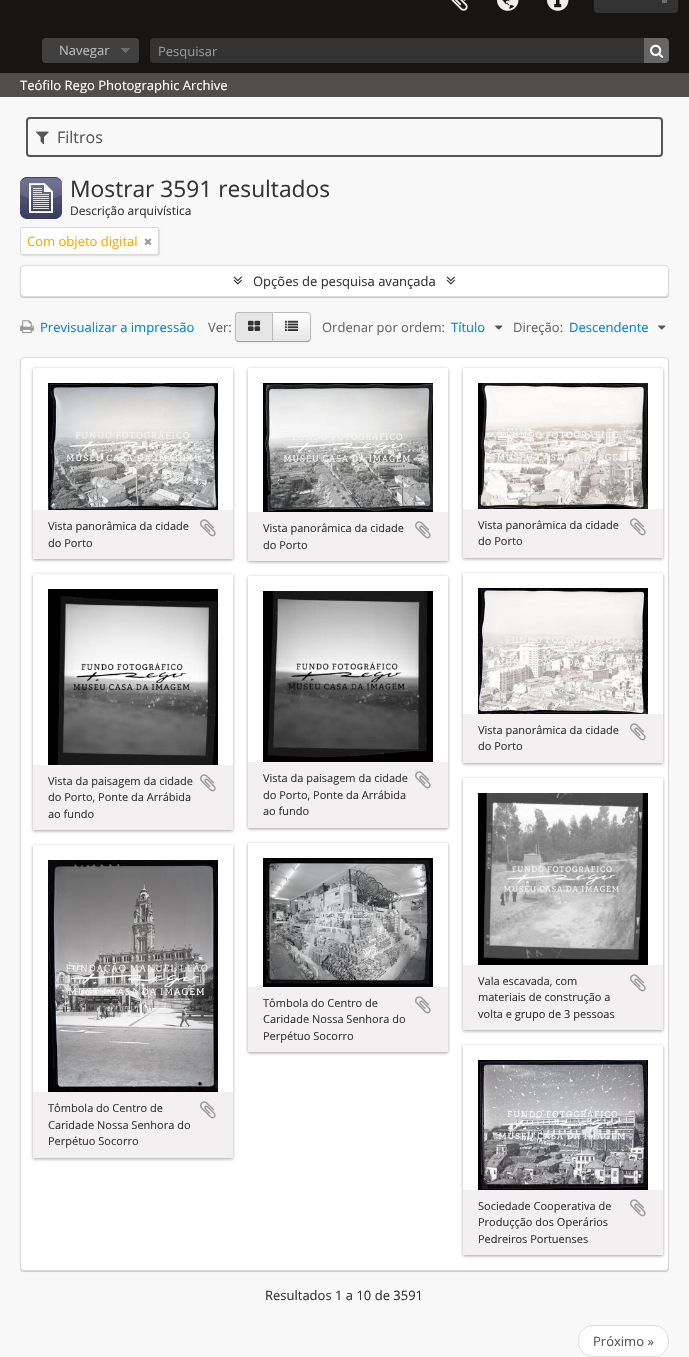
#include "include/core/SkBlurTypes.h"
#include "include/core/SkCanvas.h"
#include "include/core/SkData.h"
#include "include/core/SkFont.h"
#include "include/core/SkFontMgr.h"
#include "include/core/SkImage.h"
#include "include/core/SkMaskFilter.h"
#include "include/core/SkPaint.h"
#include "include/core/SkPathBuilder.h"
#include "include/core/SkTextBlob.h"
#include "include/effects/SkDashPathEffect.h"
#include "include/effects/SkGradientShader.h"
#include "include/utils/SkParsePath.h"

extern sk_sp<SkFontMgr> fontMgr;

void draw(SkCanvas* canvas) {
    SkPaint p;
    p.setAntiAlias(true);
    auto font = [&](const char* family, int weight, float size, bool italic = false) {
        SkFontStyle style(weight, SkFontStyle::kNormal_Width,
            italic ? SkFontStyle::kItalic_Slant : SkFontStyle::kUpright_Slant);
        SkFont result(fontMgr->matchFamilyStyle(family, style), size);
        result.setSubpixel(true);
        return result;
    };
    auto drawPhoto = [&](const char* path, float l, float t, float r, float b) {
        auto image = SkImages::DeferredFromEncodedData(SkData::MakeFromFileName(path));
        canvas->drawImageRect(image, SkRect::MakeLTRB(l, t, r, b), SkSamplingOptions());
    };
    canvas->clear(0xFFF8F8F8);
    p.setColor(0xFF161514);
    canvas->drawRect(SkRect::MakeLTRB(0, 0, 689, 73), p);
    drawPhoto("media/1.png", 451, 0, 468, 11);
    drawPhoto("media/2.png", 497, 0, 519, 11);
    drawPhoto("media/3.png", 547, 0, 569, 11);
    p.setColor(0xFF333333);
    canvas->drawRoundRect(SkRect::MakeLTRB(594, -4, 678, 13), 4, 4, p);
    p.setColor(0xFF6C6C6A);
    canvas->drawRect(SkRect::MakeLTRB(662, 0, 667, 3), p);
    p.setColor(0xFF404040);
    canvas->drawRoundRect(SkRect::MakeLTRB(42, 38, 139, 63), 4, 4, p);
    drawPhoto("media/4.png", 121, 48, 130, 53);
    auto font1 = font("Open Sans", 400, 13);
    p.setColor(0xFFBBBBBB);
    canvas->drawString("Navegar", 59, 55, font1, p);
    p.setColor(0xFF333333);
    canvas->drawRoundRect(SkRect::MakeLTRB(150, 38, 669, 63), 4, 4, p);
    p.setColor(0x12000000);
    canvas->drawPath(SkPathBuilder().moveTo(154, 39).lineTo(665, 39).cubicTo(667, 39, 669, 41, 669, 43).lineTo(669, 42).cubicTo(669, 40, 667, 38, 665, 38).lineTo(154, 38).cubicTo(152, 38, 150, 40, 150, 42).lineTo(150, 43).cubicTo(150, 41, 152, 39, 154, 39).close().detach(), p);
    p.setColor(0xFF999999);
    canvas->drawString("Pesquisar", 158, 56, font1, p);
    p.setColor(0xFF666666);
    canvas->drawPath(SkPathBuilder().moveTo(644, 38).lineTo(665, 38).cubicTo(667, 38, 669, 40, 669, 42).lineTo(669, 59).cubicTo(669, 61, 667, 63, 665, 63).lineTo(644, 63).close().detach(), p);
    drawPhoto("media/5.png", 650, 44, 664, 58);
    p.setColor(0xFF4F4E4D);
    canvas->drawRect(SkRect::MakeLTRB(0, 73, 689, 97), p);
    p.setColor(0xFFFFFFFF);
    canvas->drawString("Teófilo Rego Photographic Archive", 20, 90, font1, p);
    p.setStyle(SkPaint::kStroke_Style);
    p.setStrokeWidth(2);
    p.setColor(0xFF555555);
    canvas->drawRoundRect(SkRect::MakeLTRB(27, 118, 662, 156), 3, 3, p);
    drawPhoto("media/6.png", 36, 131, 49, 145);
    auto font2 = font("Open Sans", 400, 16);
    p.setStyle(SkPaint::kFill_Style);
    canvas->drawString("Filtros", 57, 143, font2, p);
    drawPhoto("media/7.png", 20, 177, 62, 219);
    auto font3 = font("Open Sans", 400, 22.75f);
    p.setColor(0xFF333333);
    canvas->drawString("Mostrar 3591 resultados", 70, 197, font3, p);
    auto font4 = font("Open Sans", 400, 12);
    canvas->drawString("Descrição arquivística", 70, 215, font4, p);
    p.setColor(0x1A000000);
    p.setMaskFilter(SkMaskFilter::MakeBlur(kNormal_SkBlurStyle, 0.5f));
    canvas->drawRoundRect(SkRect::MakeLTRB(21, 228, 160, 256), 2, 2, p);
    p.setMaskFilter(nullptr);
    p.setColor(0xFFFFFFFF);
    canvas->drawRoundRect(SkRect::MakeLTRB(20.5f, 227.5f, 158.5f, 254.5f), 1.5f, 1.5f, p);
    p.setStyle(SkPaint::kStroke_Style);
    p.setStrokeWidth(1);
    p.setColor(0xFFD9D9D9);
    canvas->drawRoundRect(SkRect::MakeLTRB(20.5f, 227.5f, 158.5f, 254.5f), 1.5f, 1.5f, p);
    p.setStyle(SkPaint::kFill_Style);
    p.setColor(0xFFF6AC00);
    canvas->drawString("Com objeto digital", 27, 246, font1, p);
    drawPhoto("media/8.png", 144, 238, 152, 245);
    p.setColor(0x33000000);
    p.setMaskFilter(SkMaskFilter::MakeBlur(kNormal_SkBlurStyle, 0.5f));
    canvas->drawRoundRect(SkRect::MakeLTRB(20, 266, 669, 298), 4, 4, p);
    p.setMaskFilter(nullptr);
    p.setColor(0xFFFFFFFF);
    canvas->drawRoundRect(SkRect::MakeLTRB(20.5f, 265.5f, 668.5f, 296.5f), 3.5f, 3.5f, p);
    p.setStyle(SkPaint::kStroke_Style);
    p.setColor(0xFFD9D9D9);
    canvas->drawRoundRect(SkRect::MakeLTRB(20.5f, 265.5f, 668.5f, 296.5f), 3.5f, 3.5f, p);
    drawPhoto("media/9.png", 233, 276, 242, 285);
    p.setStyle(SkPaint::kFill_Style);
    p.setColor(0xFF333333);
    canvas->drawString("Opções de pesquisa avançada", 253, 286, font1, p);
    drawPhoto("media/9.png", 446, 276, 455, 285);
    drawPhoto("media/10.png", 20, 320, 34, 334);
    p.setColor(0xFF0088CC);
    canvas->drawString("Previsualizar a impressão", 40, 332, font1, p);
    p.setColor(0xFF666666);
    canvas->drawString("Ver:", 208, 332, font1, p);
    p.setColor(0x0D000000);
    p.setMaskFilter(SkMaskFilter::MakeBlur(kNormal_SkBlurStyle, 1));
    canvas->drawRoundRect(SkRect::MakeLTRB(272, 313, 311, 343), 4, 4, p);
    p.setMaskFilter(nullptr);
    canvas->save();
    canvas->clipPath(SkPathBuilder().moveTo(272, 312).lineTo(307, 312).cubicTo(309, 312, 311, 314, 311, 316).lineTo(311, 338).cubicTo(311, 340, 309, 342, 307, 342).lineTo(272, 342).close().detach(), true);
    {
        const SkColor colors[] = {0xFFFFFFFF, 0xFFE6E6E6};
        const float stops[] = {0, 1};
        const SkPoint ends[] = {{292, 313}, {292, 341}};
        p.setShader(SkGradientShader::MakeLinear(ends, colors, stops, 2, SkTileMode::kClamp));
        p.setAlpha(255);
    }
    canvas->drawRect(SkRect::MakeLTRB(273, 313, 311, 341), p);
    canvas->restore();
    p.setShader(nullptr);
    p.setColor(0xFFBBBBBB);
    canvas->drawPath(SkPathBuilder().moveTo(272, 312).lineTo(273, 313).lineTo(307, 313).cubicTo(308, 313, 308.5f, 313.5f, 309, 314).lineTo(310, 313).cubicTo(309, 312.5f, 308, 312, 307, 312).close().detach(), p);
    canvas->drawPath(SkPathBuilder().moveTo(311, 338).lineTo(311, 316).cubicTo(311, 315, 310.5f, 314, 310, 313).lineTo(309, 314).cubicTo(309.5f, 314.5f, 310, 315, 310, 316).lineTo(310, 338).cubicTo(310, 339, 309.5f, 339.5f, 309, 340).lineTo(310, 341).cubicTo(310.5f, 340, 311, 339, 311, 338).close().detach(), p);
    p.setColor(0xFFA2A2A2);
    canvas->drawPath(SkPathBuilder().moveTo(307, 342).cubicTo(308, 342, 309, 341.5f, 310, 341).lineTo(309, 340).cubicTo(308.5f, 340.5f, 308, 341, 307, 341).lineTo(273, 341).lineTo(272, 342).close().detach(), p);
    p.setColor(0x0D000000);
    p.setMaskFilter(SkMaskFilter::MakeBlur(kNormal_SkBlurStyle, 1));
    canvas->drawRoundRect(SkRect::MakeLTRB(235, 313, 273, 343), 4, 4, p);
    p.setMaskFilter(nullptr);
    p.setColor(0xFFE6E6E6);
    canvas->drawPath(SkPathBuilder().moveTo(239, 312).lineTo(273, 312).lineTo(273, 342).lineTo(239, 342).cubicTo(237, 342, 235, 340, 235, 338).lineTo(235, 316).cubicTo(235, 314, 237, 312, 239, 312).close().detach(), p);
    p.setColor(0xFFBBBBBB);
    canvas->drawPath(SkPathBuilder().moveTo(239, 312).cubicTo(238, 312, 237, 312.5f, 236, 313).lineTo(237, 314).cubicTo(237.5f, 313.5f, 238, 313, 239, 313).lineTo(272, 313).lineTo(273, 312).close().detach(), p);
    canvas->drawPath(SkPathBuilder().moveTo(273, 312).lineTo(272, 313).lineTo(272, 341).lineTo(273, 342).close().detach(), p);
    p.setColor(0xFFA2A2A2);
    canvas->drawPath(SkPathBuilder().moveTo(273, 342).lineTo(272, 341).lineTo(239, 341).cubicTo(238, 341, 237.5f, 340.5f, 237, 340).lineTo(236, 341).cubicTo(237, 341.5f, 238, 342, 239, 342).close().detach(), p);
    p.setColor(0xFFBBBBBB);
    canvas->drawPath(SkPathBuilder().moveTo(235, 316).lineTo(235, 338).cubicTo(235, 339, 235.5f, 340, 236, 341).lineTo(237, 340).cubicTo(236.5f, 339.5f, 236, 339, 236, 338).lineTo(236, 316).cubicTo(236, 315, 236.5f, 314.5f, 237, 314).lineTo(236, 313).cubicTo(235.5f, 314, 235, 315, 235, 316).close().detach(), p);
    drawPhoto("media/11.png", 248, 320, 261, 331);
    drawPhoto("media/12.png", 285, 320, 298, 331);
    p.setColor(0xFF666666);
    canvas->drawString("Ordenar por ordem:", 322, 332, font1, p);
    p.setColor(0xFF0088CC);
    canvas->drawString("Título", 451, 332, font1, p);
    drawPhoto("media/13.png", 495, 325, 503, 330);
    p.setColor(0xFF666666);
    canvas->drawString("Direção:", 513, 332, font1, p);
    p.setColor(0xFF0088CC);
    canvas->drawString("Descendente", 569, 332, font1, p);
    drawPhoto("media/13.png", 658, 325, 666, 330);
    p.setColor(0x33000000);
    p.setMaskFilter(SkMaskFilter::MakeBlur(kNormal_SkBlurStyle, 0.5f));
    canvas->drawRoundRect(SkRect::MakeLTRB(20, 358, 669, 1272), 4, 4, p);
    p.setMaskFilter(nullptr);
    p.setColor(0xFFFFFFFF);
    canvas->drawRoundRect(SkRect::MakeLTRB(20.5f, 357.5f, 668.5f, 1270.5f), 3.5f, 3.5f, p);
    p.setStyle(SkPaint::kStroke_Style);
    p.setColor(0xFFD9D9D9);
    canvas->drawRoundRect(SkRect::MakeLTRB(20.5f, 357.5f, 668.5f, 1270.5f), 3.5f, 3.5f, p);
    canvas->save();
    canvas->clipPath(SkPathBuilder(SkPathFillType::kEvenOdd).moveTo(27, 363).lineTo(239, 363).lineTo(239, 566).lineTo(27, 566).close().moveTo(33, 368).lineTo(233, 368).lineTo(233, 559).lineTo(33, 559).close().detach(), true);
    p.setStyle(SkPaint::kFill_Style);
    p.setColor(0x66191919);
    p.setMaskFilter(SkMaskFilter::MakeBlur(kNormal_SkBlurStyle, 1.5f));
    canvas->drawRect(SkRect::MakeLTRB(33, 369, 233, 560), p);
    p.setMaskFilter(nullptr);
    canvas->restore();
    drawPhoto("media/14.png", 48, 383, 218, 510);
    p.setColor(0xFFF2F0F0);
    canvas->drawRect(SkRect::MakeLTRB(33, 510, 233, 559), p);
    auto font5 = font("Open Sans", 400, 11);
    p.setColor(0xFF333333);
    canvas->drawString("Vista panorâmica da cidade", 48, 530, font5, p);
    drawPhoto("media/15.png", 200, 519, 216, 537);
    canvas->drawString("do Porto", 48, 547, font5, p);
    canvas->save();
    canvas->clipPath(SkPathBuilder(SkPathFillType::kEvenOdd).moveTo(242, 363).lineTo(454, 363).lineTo(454, 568).lineTo(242, 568).close().moveTo(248, 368).lineTo(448, 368).lineTo(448, 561).lineTo(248, 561).close().detach(), true);
    p.setColor(0x66191919);
    p.setMaskFilter(SkMaskFilter::MakeBlur(kNormal_SkBlurStyle, 1.5f));
    canvas->drawRect(SkRect::MakeLTRB(248, 369, 448, 562), p);
    p.setMaskFilter(nullptr);
    canvas->restore();
    drawPhoto("media/16.png", 263, 383, 433, 512);
    p.setColor(0xFFF2F0F0);
    canvas->drawRect(SkRect::MakeLTRB(248, 512, 448, 561), p);
    p.setColor(0xFF333333);
    canvas->drawString("Vista panorâmica da cidade", 263, 532, font5, p);
    drawPhoto("media/15.png", 415, 521, 431, 539);
    canvas->drawString("do Porto", 263, 549, font5, p);
    canvas->save();
    canvas->clipPath(SkPathBuilder(SkPathFillType::kEvenOdd).moveTo(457, 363).lineTo(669, 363).lineTo(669, 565).lineTo(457, 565).close().moveTo(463, 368).lineTo(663, 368).lineTo(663, 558).lineTo(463, 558).close().detach(), true);
    p.setColor(0x66191919);
    p.setMaskFilter(SkMaskFilter::MakeBlur(kNormal_SkBlurStyle, 1.5f));
    canvas->drawRect(SkRect::MakeLTRB(463, 369, 663, 559), p);
    p.setMaskFilter(nullptr);
    canvas->restore();
    drawPhoto("media/17.png", 478, 383, 648, 509);
    p.setColor(0xFFF2F0F0);
    canvas->drawRect(SkRect::MakeLTRB(463, 509, 663, 558), p);
    p.setColor(0xFF333333);
    canvas->drawString("Vista panorâmica da cidade", 478, 529, font5, p);
    drawPhoto("media/15.png", 630, 518, 646, 536);
    canvas->drawString("do Porto", 478, 545, font5, p);
    canvas->save();
    canvas->clipPath(SkPathBuilder(SkPathFillType::kEvenOdd).moveTo(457, 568).lineTo(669, 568).lineTo(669, 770).lineTo(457, 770).close().moveTo(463, 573).lineTo(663, 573).lineTo(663, 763).lineTo(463, 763).close().detach(), true);
    p.setColor(0x66191919);
    p.setMaskFilter(SkMaskFilter::MakeBlur(kNormal_SkBlurStyle, 1.5f));
    canvas->drawRect(SkRect::MakeLTRB(463, 574, 663, 764), p);
    p.setMaskFilter(nullptr);
    canvas->restore();
    drawPhoto("media/18.png", 478, 588, 648, 714);
    p.setColor(0xFFF2F0F0);
    canvas->drawRect(SkRect::MakeLTRB(463, 714, 663, 763), p);
    p.setColor(0xFF333333);
    canvas->drawString("Vista panorâmica da cidade", 478, 734, font5, p);
    drawPhoto("media/15.png", 630, 723, 646, 741);
    canvas->drawString("do Porto", 478, 750, font5, p);
    canvas->save();
    canvas->clipPath(SkPathBuilder(SkPathFillType::kEvenOdd).moveTo(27, 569).lineTo(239, 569).lineTo(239, 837).lineTo(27, 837).close().moveTo(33, 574).lineTo(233, 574).lineTo(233, 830).lineTo(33, 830).close().detach(), true);
    p.setColor(0x66191919);
    p.setMaskFilter(SkMaskFilter::MakeBlur(kNormal_SkBlurStyle, 1.5f));
    canvas->drawRect(SkRect::MakeLTRB(33, 575, 233, 831), p);
    p.setMaskFilter(nullptr);
    canvas->restore();
    drawPhoto("media/19.png", 48, 589, 218, 765);
    p.setColor(0xFFF2F0F0);
    canvas->drawRect(SkRect::MakeLTRB(33, 765, 233, 830), p);
    p.setColor(0xFF333333);
    canvas->drawString("Vista da paisagem da cidade", 48, 785, font5, p);
    drawPhoto("media/15.png", 200, 774, 216, 792);
    canvas->drawString("do Porto, Ponte da Arrábida", 48, 801, font5, p);
    canvas->drawString("ao fundo", 48, 818, font5, p);
    canvas->save();
    canvas->clipPath(SkPathBuilder(SkPathFillType::kEvenOdd).moveTo(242, 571).lineTo(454, 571).lineTo(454, 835).lineTo(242, 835).close().moveTo(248, 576).lineTo(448, 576).lineTo(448, 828).lineTo(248, 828).close().detach(), true);
    p.setColor(0x66191919);
    p.setMaskFilter(SkMaskFilter::MakeBlur(kNormal_SkBlurStyle, 1.5f));
    canvas->drawRect(SkRect::MakeLTRB(248, 577, 448, 829), p);
    p.setMaskFilter(nullptr);
    canvas->restore();
    drawPhoto("media/20.png", 263, 591, 433, 762);
    p.setColor(0xFFF2F0F0);
    canvas->drawRect(SkRect::MakeLTRB(248, 762, 448, 828), p);
    p.setColor(0xFF333333);
    canvas->drawString("Vista da paisagem da cidade", 263, 782, font5, p);
    drawPhoto("media/15.png", 415, 771, 431, 789);
    canvas->drawString("do Porto, Ponte da Arrábida", 263, 799, font5, p);
    canvas->drawString("ao fundo", 263, 815, font5, p);
    canvas->save();
    canvas->clipPath(SkPathBuilder(SkPathFillType::kEvenOdd).moveTo(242, 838).lineTo(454, 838).lineTo(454, 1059).lineTo(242, 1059).close().moveTo(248, 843).lineTo(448, 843).lineTo(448, 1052).lineTo(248, 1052).close().detach(), true);
    p.setColor(0x66191919);
    p.setMaskFilter(SkMaskFilter::MakeBlur(kNormal_SkBlurStyle, 1.5f));
    canvas->drawRect(SkRect::MakeLTRB(248, 844, 448, 1053), p);
    p.setMaskFilter(nullptr);
    canvas->restore();
    drawPhoto("media/21.png", 263, 858, 433, 987);
    p.setColor(0xFFF2F0F0);
    canvas->drawRect(SkRect::MakeLTRB(248, 987, 448, 1052), p);
    p.setColor(0xFF333333);
    canvas->drawString("Tômbola do Centro de", 263, 1007, font5, p);
    drawPhoto("media/15.png", 415, 996, 431, 1014);
    canvas->drawString("Caridade Nossa Senhora do", 263, 1023, font5, p);
    canvas->drawString("Perpétuo Socorro", 263, 1040, font5, p);
    canvas->save();
    canvas->clipPath(SkPathBuilder(SkPathFillType::kEvenOdd).moveTo(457, 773).lineTo(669, 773).lineTo(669, 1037).lineTo(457, 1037).close().moveTo(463, 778).lineTo(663, 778).lineTo(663, 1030).lineTo(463, 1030).close().detach(), true);
    p.setColor(0x66191919);
    p.setMaskFilter(SkMaskFilter::MakeBlur(kNormal_SkBlurStyle, 1.5f));
    canvas->drawRect(SkRect::MakeLTRB(463, 779, 663, 1031), p);
    p.setMaskFilter(nullptr);
    canvas->restore();
    drawPhoto("media/22.png", 478, 793, 648, 965);
    p.setColor(0xFFF2F0F0);
    canvas->drawRect(SkRect::MakeLTRB(463, 965, 663, 1030), p);
    p.setColor(0xFF333333);
    canvas->drawString("Vala escavada, com", 478, 985, font5, p);
    drawPhoto("media/15.png", 630, 974, 646, 992);
    canvas->drawString("materiais de construção a", 478, 1001, font5, p);
    canvas->drawString("volta e grupo de 3 pessoas", 478, 1018, font5, p);
    canvas->save();
    canvas->clipPath(SkPathBuilder(SkPathFillType::kEvenOdd).moveTo(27, 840).lineTo(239, 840).lineTo(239, 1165).lineTo(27, 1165).close().moveTo(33, 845).lineTo(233, 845).lineTo(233, 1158).lineTo(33, 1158).close().detach(), true);
    p.setColor(0x66191919);
    p.setMaskFilter(SkMaskFilter::MakeBlur(kNormal_SkBlurStyle, 1.5f));
    canvas->drawRect(SkRect::MakeLTRB(33, 846, 233, 1159), p);
    p.setMaskFilter(nullptr);
    canvas->restore();
    drawPhoto("media/23.png", 48, 860, 218, 1092);
    p.setColor(0xFFF2F0F0);
    canvas->drawRect(SkRect::MakeLTRB(33, 1092, 233, 1158), p);
    p.setColor(0xFF333333);
    canvas->drawString("Tômbola do Centro de", 48, 1112, font5, p);
    drawPhoto("media/15.png", 200, 1101, 216, 1119);
    canvas->drawString("Caridade Nossa Senhora do", 48, 1129, font5, p);
    canvas->drawString("Perpétuo Socorro", 48, 1145, font5, p);
    canvas->save();
    canvas->clipPath(SkPathBuilder(SkPathFillType::kEvenOdd).moveTo(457, 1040).lineTo(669, 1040).lineTo(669, 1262).lineTo(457, 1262).close().moveTo(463, 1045).lineTo(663, 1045).lineTo(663, 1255).lineTo(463, 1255).close().detach(), true);
    p.setColor(0x66191919);
    p.setMaskFilter(SkMaskFilter::MakeBlur(kNormal_SkBlurStyle, 1.5f));
    canvas->drawRect(SkRect::MakeLTRB(463, 1046, 663, 1256), p);
    p.setMaskFilter(nullptr);
    canvas->restore();
    drawPhoto("media/24.png", 478, 1060, 648, 1190);
    p.setColor(0xFFF2F0F0);
    canvas->drawRect(SkRect::MakeLTRB(463, 1190, 663, 1255), p);
    p.setColor(0xFF333333);
    canvas->drawString("Sociedade Cooperativa de", 478, 1210, font5, p);
    drawPhoto("media/15.png", 630, 1199, 646, 1217);
    canvas->drawString("Produçção dos Operários", 478, 1226, font5, p);
    canvas->drawString("Pedreiros Portuenses", 478, 1243, font5, p);
    canvas->drawString("Resultados 1 a 10 de 3591", 265, 1300, font1, p);
    p.setColor(0xFFFFFFFF);
    canvas->drawRoundRect(SkRect::MakeLTRB(578.5f, 1325.5f, 668.5f, 1356.5f), 14.5f, 14.5f, p);
    p.setStyle(SkPaint::kStroke_Style);
    p.setColor(0xFFDDDDDD);
    canvas->drawRoundRect(SkRect::MakeLTRB(578.5f, 1325.5f, 668.5f, 1356.5f), 14.5f, 14.5f, p);
    p.setStyle(SkPaint::kFill_Style);
    p.setColor(0xFF555555);
    canvas->drawString("Próximo »", 593, 1346, font1, p);
}
